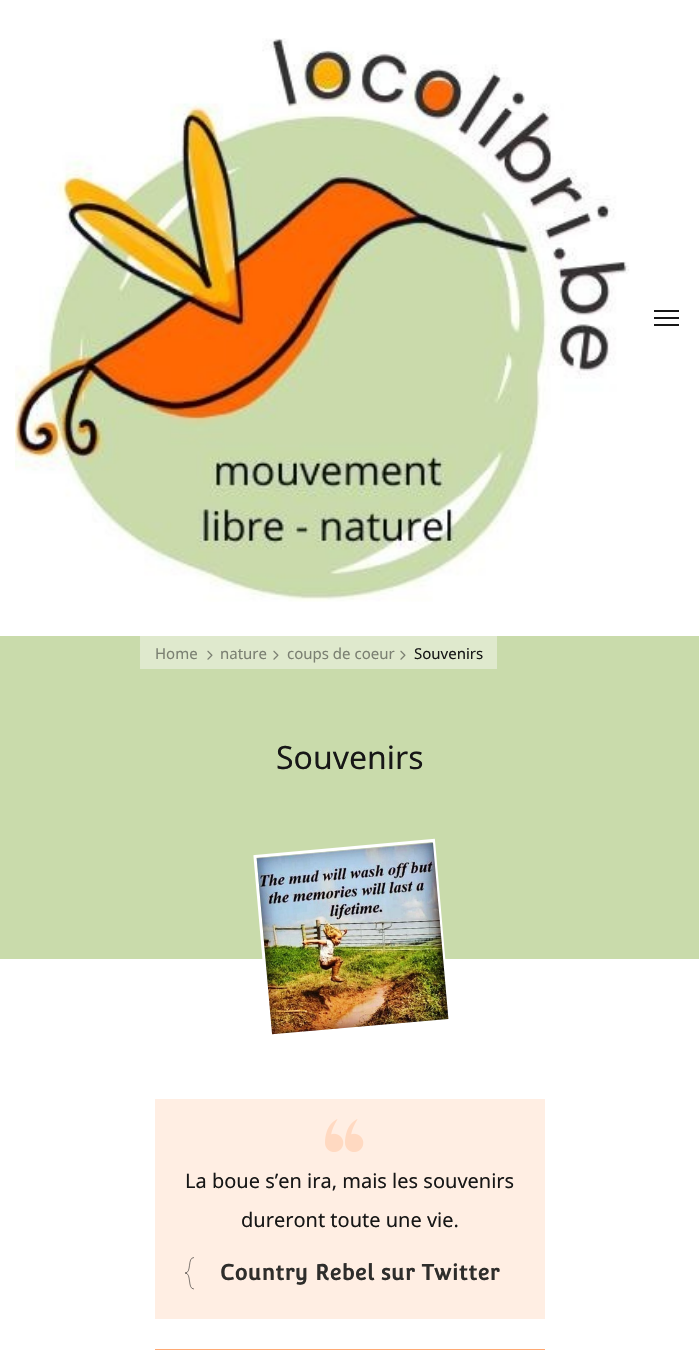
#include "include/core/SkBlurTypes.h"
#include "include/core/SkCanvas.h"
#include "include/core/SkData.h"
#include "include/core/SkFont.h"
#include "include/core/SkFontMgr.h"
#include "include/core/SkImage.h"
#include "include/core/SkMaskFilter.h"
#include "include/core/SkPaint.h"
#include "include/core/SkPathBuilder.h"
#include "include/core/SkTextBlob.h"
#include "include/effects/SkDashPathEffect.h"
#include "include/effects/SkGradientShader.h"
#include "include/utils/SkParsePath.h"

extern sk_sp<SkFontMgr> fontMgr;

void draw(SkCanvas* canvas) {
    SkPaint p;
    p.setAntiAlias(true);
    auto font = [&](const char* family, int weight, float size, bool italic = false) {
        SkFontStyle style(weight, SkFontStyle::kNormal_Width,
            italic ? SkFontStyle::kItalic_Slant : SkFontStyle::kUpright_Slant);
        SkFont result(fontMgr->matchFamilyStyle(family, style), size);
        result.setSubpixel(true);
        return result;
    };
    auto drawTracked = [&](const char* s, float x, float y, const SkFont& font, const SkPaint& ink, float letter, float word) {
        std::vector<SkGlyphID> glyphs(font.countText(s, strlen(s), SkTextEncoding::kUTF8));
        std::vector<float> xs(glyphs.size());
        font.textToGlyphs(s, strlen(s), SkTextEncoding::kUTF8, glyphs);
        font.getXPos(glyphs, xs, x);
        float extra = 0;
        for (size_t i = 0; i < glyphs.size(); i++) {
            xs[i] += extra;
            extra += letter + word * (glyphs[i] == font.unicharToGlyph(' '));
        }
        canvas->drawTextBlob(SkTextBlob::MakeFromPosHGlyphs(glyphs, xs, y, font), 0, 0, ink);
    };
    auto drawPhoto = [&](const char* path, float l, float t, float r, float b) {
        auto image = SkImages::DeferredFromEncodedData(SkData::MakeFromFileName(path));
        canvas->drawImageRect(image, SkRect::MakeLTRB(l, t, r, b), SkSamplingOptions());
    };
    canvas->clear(0xFFFFFFFF);
    drawPhoto("media/1.png", 15, 38, 630, 602);
    {
        const struct { float l, t, r, b; SkColor color; } items[] = {
            {654, 310, 679, 312, 0xFF171717},
            {654, 317, 679, 319, 0xFF171717},
            {654, 324, 679, 326, 0xFF171717},
            {0, 636, 699, 959, 0xFFC9DBAB},
            {140, 636, 497, 669, 0xFFDFE9CD},
        };
        for (auto [l, t, r, b, color] : items) {
            p.setColor(color);
            canvas->drawRect(SkRect::MakeLTRB(l, t, r, b), p);
        }
    }
    auto font1 = font("Noto Music", 400, 15);
    p.setColor(0xFF7B8072);
    canvas->drawString("Home", 155, 659, font1, p);
    drawPhoto("media/2.png", 207, 650, 213, 660);
    canvas->drawString("nature", 220, 659, font1, p);
    drawPhoto("media/2.png", 273, 650, 279, 660);
    canvas->drawString("coups de coeur", 287, 659, font1, p);
    drawPhoto("media/2.png", 400, 650, 406, 660);
    p.setColor(0xFF171717);
    canvas->drawString("Souvenirs", 414, 659, font1, p);
    auto font2 = font("Noto Music", 400, 32);
    canvas->drawString("Souvenirs", 276, 769, font2, p);
    p.setStyle(SkPaint::kStroke_Style);
    p.setStrokeWidth(3);
    p.setColor(0xFFFFFFFF);
    canvas->drawPath(SkPathBuilder().moveTo(255, 856.5f).lineTo(433.5f, 840.5f).lineTo(449, 1019.5f).lineTo(270.5f, 1035).close().detach(), p);
    drawPhoto("media/3.png", 256, 842, 449, 1035);
    p.setStyle(SkPaint::kFill_Style);
    p.setColor(0xFFFFEEE3);
    canvas->drawRect(SkRect::MakeLTRB(155, 1099, 545, 1319), p);
    drawPhoto("media/4.png", 325, 1119, 364, 1152);
    auto font3 = font("Noto Music", 400, 20);
    p.setColor(0xFF171717);
    canvas->drawString("La boue s’en ira, mais les souvenirs", 185, 1188, font3, p);
    canvas->drawString("dureront toute une vie.", 241, 1227, font3, p);
    p.setStyle(SkPaint::kStroke_Style);
    p.setStrokeWidth(0.5f);
    p.setColor(0xFF000000);
    canvas->drawPath(SkPathBuilder().moveTo(194, 1257.5f).cubicTo(187, 1257.5f, 192, 1273, 185, 1273).cubicTo(192, 1273, 187, 1289, 194, 1289).detach(), p);
    auto font4 = font("Convergence", 700, 21.4f);
    p.setStyle(SkPaint::kFill_Style);
    p.setColor(0xFF2E2D2B);
    drawTracked("Country Rebel sur Twitter", 220, 1280, font4, p, 0.5f, 0);
    p.setColor(0xFFFFA872);
    canvas->drawRect(SkRect::MakeLTRB(155, 1349, 545, 1350), p);
}
